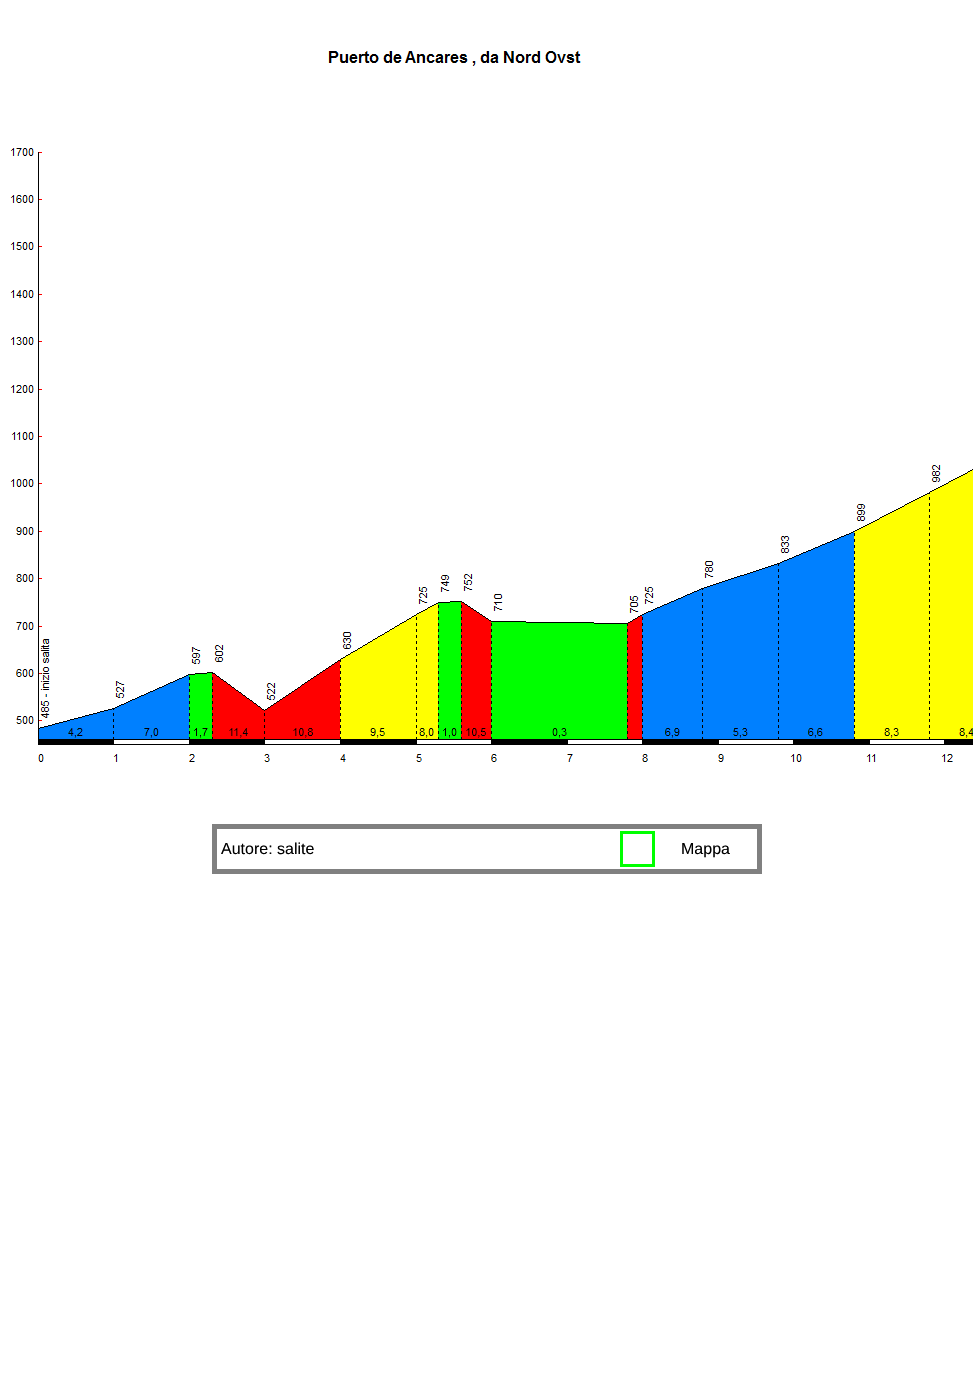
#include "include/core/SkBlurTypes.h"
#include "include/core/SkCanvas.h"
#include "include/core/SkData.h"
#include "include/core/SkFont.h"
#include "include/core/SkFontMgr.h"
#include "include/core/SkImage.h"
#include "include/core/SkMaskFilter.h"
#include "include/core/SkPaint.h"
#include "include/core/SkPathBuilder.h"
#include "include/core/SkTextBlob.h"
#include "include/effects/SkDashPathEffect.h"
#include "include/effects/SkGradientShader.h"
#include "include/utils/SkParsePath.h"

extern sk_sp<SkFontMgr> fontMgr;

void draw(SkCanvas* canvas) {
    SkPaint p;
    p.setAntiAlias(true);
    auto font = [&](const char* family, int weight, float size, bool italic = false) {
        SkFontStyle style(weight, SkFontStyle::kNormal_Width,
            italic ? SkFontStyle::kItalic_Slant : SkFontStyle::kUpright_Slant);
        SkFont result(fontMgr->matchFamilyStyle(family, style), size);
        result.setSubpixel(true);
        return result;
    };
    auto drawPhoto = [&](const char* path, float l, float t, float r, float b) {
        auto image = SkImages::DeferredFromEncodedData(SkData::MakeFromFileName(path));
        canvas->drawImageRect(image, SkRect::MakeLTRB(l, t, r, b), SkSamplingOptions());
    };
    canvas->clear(0xFFFFFFFF);
    drawPhoto("media/1.png", 10, 51, 973, 762);
    p.setStyle(SkPaint::kStroke_Style);
    p.setStrokeWidth(5);
    p.setColor(0xFF808080);
    canvas->drawRect(SkRect::MakeLTRB(214.5f, 826.5f, 759.5f, 871.5f), p);
    auto font1 = font("Liberation Sans", 400, 16);
    p.setStyle(SkPaint::kFill_Style);
    p.setColor(0xFF000000);
    canvas->drawString("Autore: salite", 221, 854, font1, p);
    p.setStyle(SkPaint::kStroke_Style);
    p.setStrokeWidth(3);
    p.setColor(0xFF00FF00);
    canvas->drawRect(SkRect::MakeLTRB(621.5f, 832.5f, 653.5f, 865.5f), p);
    p.setStyle(SkPaint::kFill_Style);
    p.setColor(0xFF000000);
    canvas->drawString("Mappa", 681, 854, font1, p);
}
